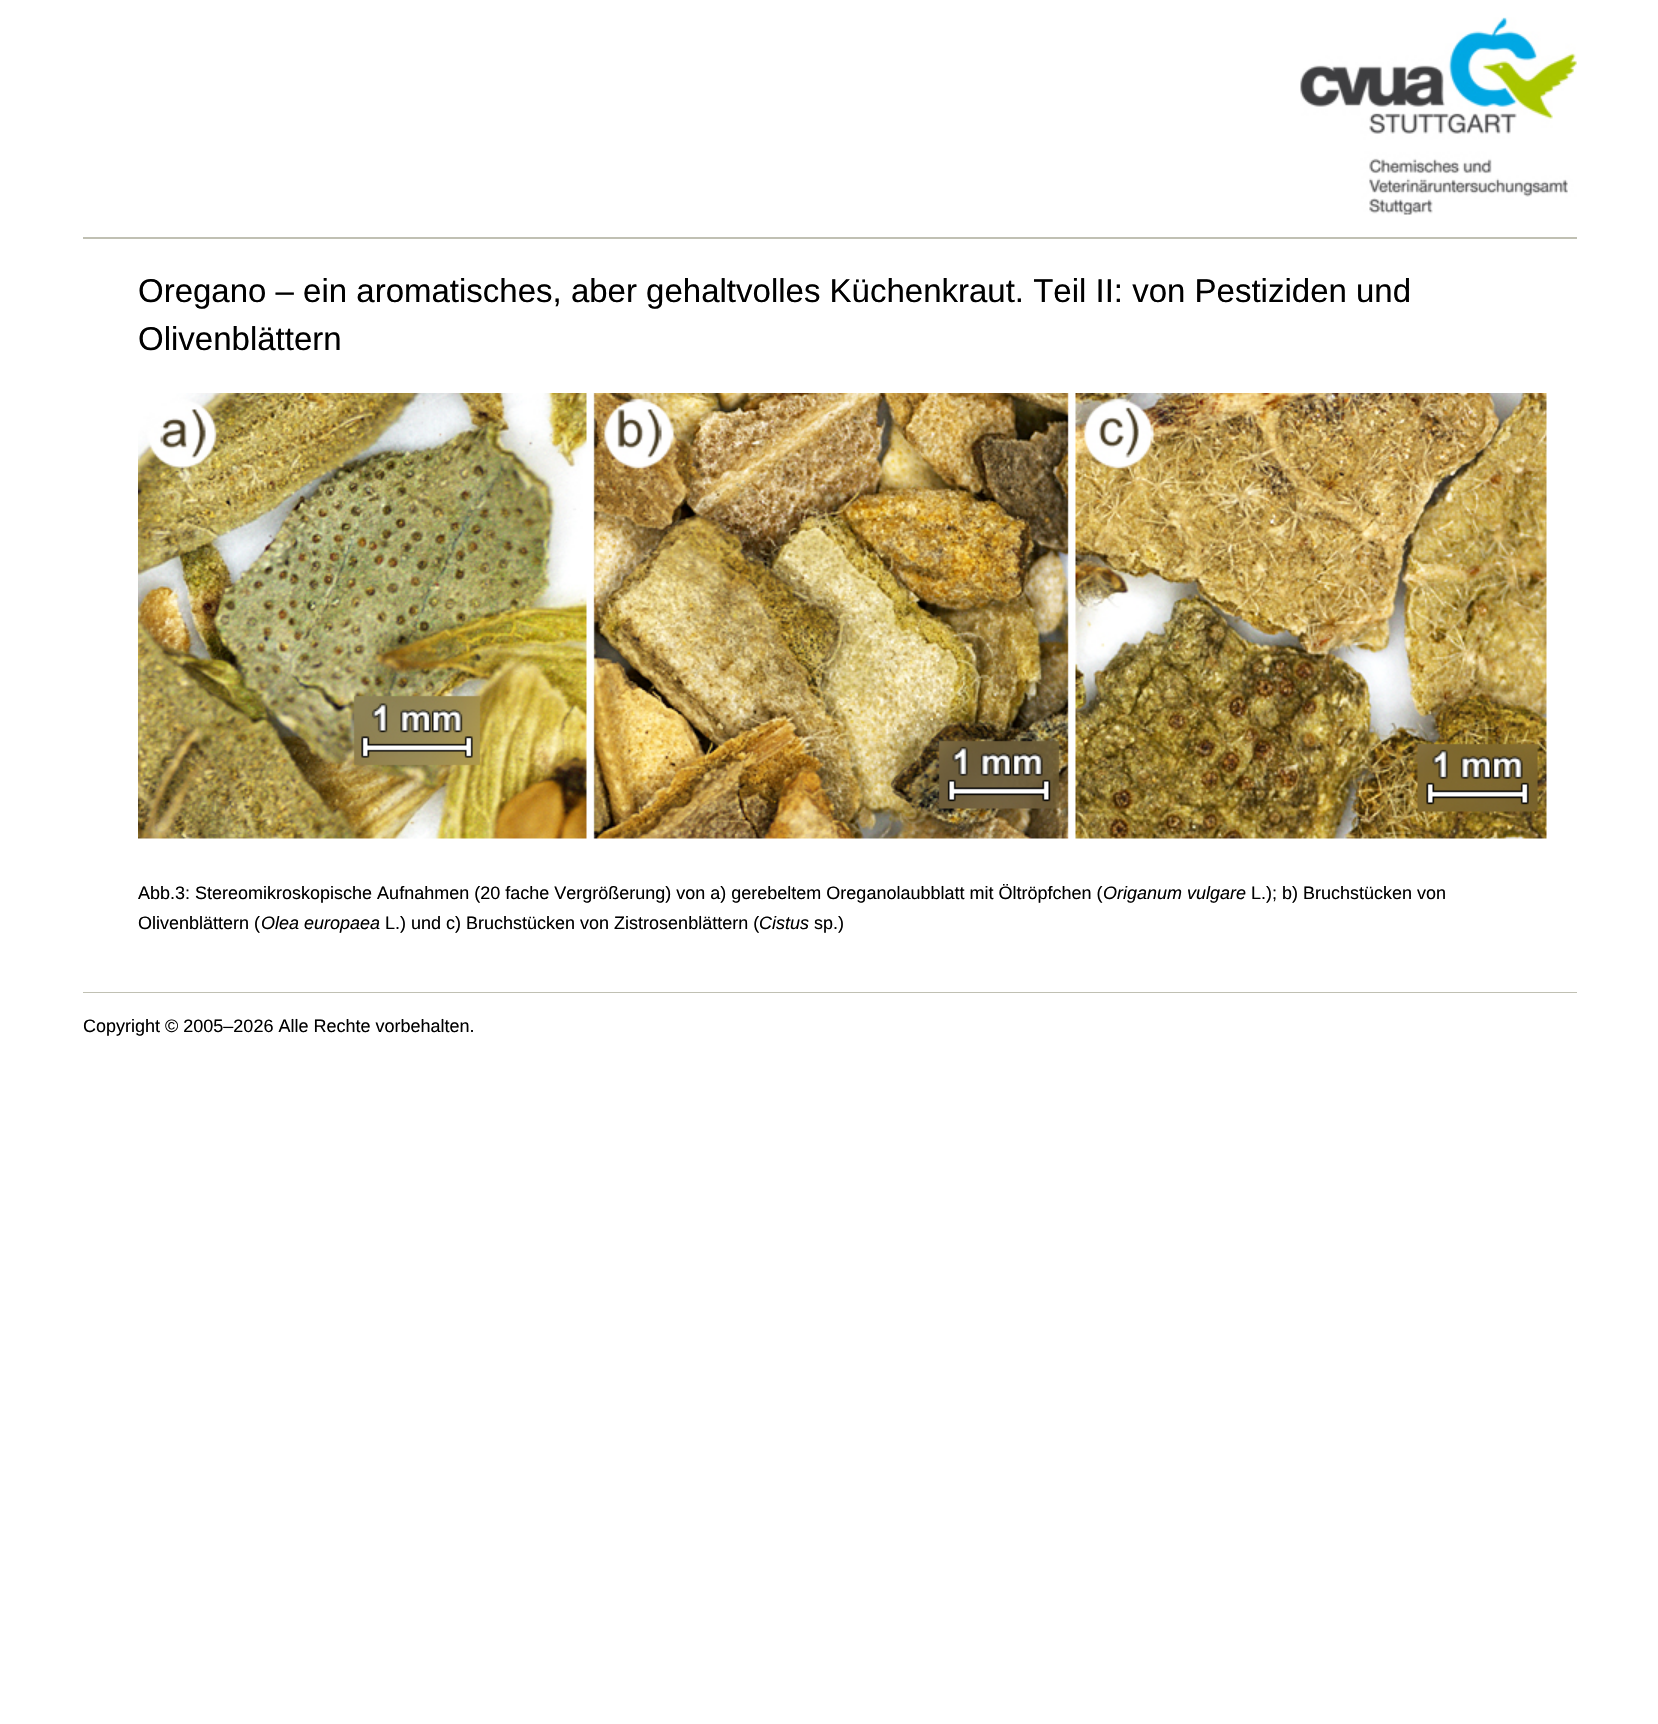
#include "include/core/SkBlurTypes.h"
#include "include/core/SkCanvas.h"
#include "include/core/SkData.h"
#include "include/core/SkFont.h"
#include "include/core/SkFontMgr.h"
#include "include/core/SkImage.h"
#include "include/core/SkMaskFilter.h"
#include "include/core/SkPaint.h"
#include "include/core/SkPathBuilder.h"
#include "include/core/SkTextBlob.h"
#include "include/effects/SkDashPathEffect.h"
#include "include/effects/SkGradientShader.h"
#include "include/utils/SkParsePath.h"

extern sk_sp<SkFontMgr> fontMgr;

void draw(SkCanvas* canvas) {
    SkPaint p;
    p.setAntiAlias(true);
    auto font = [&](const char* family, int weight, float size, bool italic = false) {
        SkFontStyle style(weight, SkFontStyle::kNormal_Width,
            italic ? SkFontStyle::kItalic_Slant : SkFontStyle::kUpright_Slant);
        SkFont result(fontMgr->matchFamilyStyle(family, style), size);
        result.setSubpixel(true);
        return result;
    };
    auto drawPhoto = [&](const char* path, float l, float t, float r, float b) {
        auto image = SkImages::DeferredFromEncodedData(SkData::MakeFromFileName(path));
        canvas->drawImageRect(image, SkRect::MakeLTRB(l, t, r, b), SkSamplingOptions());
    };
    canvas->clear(0xFFFFFFFF);
    drawPhoto("media/1.png", 1300, 17, 1577, 215);
    p.setColor(0xFFC0C0B3);
    canvas->drawRect(SkRect::MakeLTRB(83, 237, 1577, 239), p);
    canvas->drawRect(SkRect::MakeLTRB(83, 992, 1577, 993), p);
    auto font1 = font("Liberation Sans", 400, 33);
    p.setColor(0xFF000000);
    canvas->drawString("Oregano – ein aromatisches, aber gehaltvolles Küchenkraut. Teil II: von Pestiziden und", 138, 302, font1, p);
    canvas->drawString("Olivenblättern", 138, 350, font1, p);
    drawPhoto("media/2.png", 138, 393, 1547, 839);
    auto font2 = font("Liberation Sans", 400, 18);
    canvas->drawString("Abb.3: Stereomikroskopische Aufnahmen (20 fache Vergrößerung) von a) gerebeltem Oreganolaubblatt mit Öltröpfchen (", 138, 899, font2, p);
    auto font3 = font("Liberation Sans", 400, 18, true);
    canvas->drawString("Origanum vulgare", 1103, 899, font3, p);
    canvas->drawString("L.); b) Bruchstücken von", 1251, 899, font2, p);
    canvas->drawString("Olivenblättern (", 138, 929, font2, p);
    canvas->drawString("Olea europaea", 261, 929, font3, p);
    canvas->drawString("L.) und c) Bruchstücken von Zistrosenblättern (", 385, 929, font2, p);
    canvas->drawString("Cistus", 759, 929, font3, p);
    canvas->drawString("sp.)", 814, 929, font2, p);
    canvas->drawString("Copyright © 2005–2026 Alle Rechte vorbehalten.", 83, 1032, font2, p);
}
